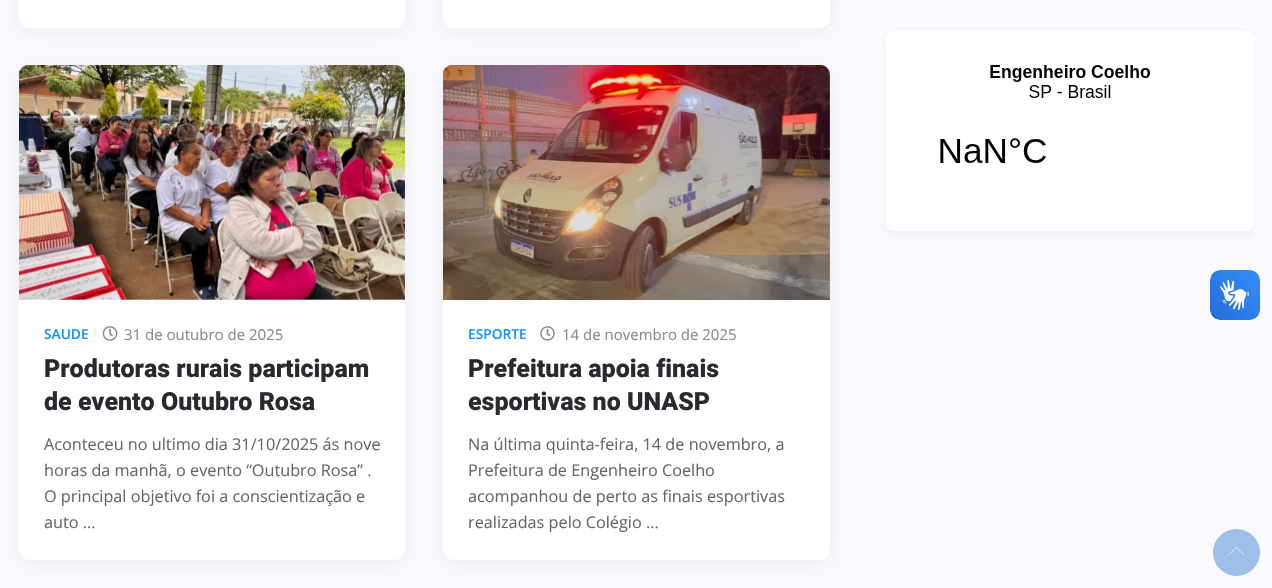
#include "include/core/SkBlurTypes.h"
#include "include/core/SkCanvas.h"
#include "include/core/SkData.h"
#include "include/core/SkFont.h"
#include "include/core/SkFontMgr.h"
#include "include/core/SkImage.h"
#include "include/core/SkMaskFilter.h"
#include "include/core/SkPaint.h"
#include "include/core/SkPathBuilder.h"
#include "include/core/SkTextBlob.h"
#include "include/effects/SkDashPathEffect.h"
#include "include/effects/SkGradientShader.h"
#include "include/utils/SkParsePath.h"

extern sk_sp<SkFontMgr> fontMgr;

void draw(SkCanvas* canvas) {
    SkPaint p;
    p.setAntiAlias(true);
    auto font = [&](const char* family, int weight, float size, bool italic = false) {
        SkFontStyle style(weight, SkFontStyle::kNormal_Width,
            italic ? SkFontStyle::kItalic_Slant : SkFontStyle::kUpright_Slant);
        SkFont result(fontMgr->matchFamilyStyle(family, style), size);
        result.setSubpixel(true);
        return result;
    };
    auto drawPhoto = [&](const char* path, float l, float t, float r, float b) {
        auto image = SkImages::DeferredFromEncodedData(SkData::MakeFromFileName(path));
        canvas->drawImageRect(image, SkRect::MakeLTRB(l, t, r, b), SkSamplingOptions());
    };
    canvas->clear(0xFFF9F9FE);
    drawPhoto("media/1.png", 1210, 270, 1260, 320);
    canvas->save();
    canvas->clipRect(SkRect::MakeLTRB(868, 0, 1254, 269));
    p.setColor(0x0D1C1C1C);
    p.setMaskFilter(SkMaskFilter::MakeBlur(kNormal_SkBlurStyle, 6));
    canvas->drawRoundRect(SkRect::MakeLTRB(886, 35, 1254, 235), 8, 8, p);
    p.setMaskFilter(nullptr);
    canvas->restore();
    p.setColor(0xFFFFFFFF);
    canvas->drawRoundRect(SkRect::MakeLTRB(886, 31, 1254, 231), 8, 8, p);
    drawPhoto("media/2.png", 940, 65, 1150, 163);
    p.setColor(0x0D000000);
    p.setMaskFilter(SkMaskFilter::MakeBlur(kNormal_SkBlurStyle, 9.5f));
    canvas->drawRoundRect(SkRect::MakeLTRB(19, -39, 405, 31), 10, 10, p);
    p.setMaskFilter(nullptr);
    p.setColor(0xFFFFFFFF);
    canvas->drawRoundRect(SkRect::MakeLTRB(19, -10, 405, 28), 10, 10, p);
    p.setColor(0x0D000000);
    p.setMaskFilter(SkMaskFilter::MakeBlur(kNormal_SkBlurStyle, 9.5f));
    canvas->drawRoundRect(SkRect::MakeLTRB(443, -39, 830, 31), 10, 10, p);
    p.setMaskFilter(nullptr);
    p.setColor(0xFFFFFFFF);
    canvas->drawRoundRect(SkRect::MakeLTRB(443, -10, 830, 28), 10, 10, p);
    p.setColor(0x0D000000);
    p.setMaskFilter(SkMaskFilter::MakeBlur(kNormal_SkBlurStyle, 9.5f));
    canvas->drawRoundRect(SkRect::MakeLTRB(19, 69, 405, 564), 10, 10, p);
    p.setMaskFilter(nullptr);
    p.setColor(0xFFFFFFFF);
    canvas->drawRoundRect(SkRect::MakeLTRB(19, 65, 405, 560), 10, 10, p);
    drawPhoto("media/3.png", 19, 65, 405, 300);
    auto font1 = font("Open Sans", 600, 13.75f);
    p.setColor(0xFF1091FF);
    canvas->drawString("SAUDE", 44, 339, font1, p);
    drawPhoto("media/4.png", 102, 326, 118, 341);
    auto font2 = font("Open Sans", 400, 15);
    p.setColor(0xFF888888);
    canvas->drawString("31 de outubro de 2025", 124, 340, font2, p);
    auto font3 = font("Heebo", 800, 25);
    p.setColor(0xFF282A30);
    canvas->drawString("Produtoras rurais participam", 44, 377, font3, p);
    canvas->drawString("de evento Outubro Rosa", 44, 410, font3, p);
    auto font4 = font("Open Sans", 400, 16.25f);
    p.setColor(0xFF666666);
    {
        const struct { const char* s; float x, y; } items[] = {
            {"Aconteceu no ultimo dia 31/10/2025 ás nove", 44, 450},
            {"horas da manhã, o evento “Outubro Rosa” .", 44, 476},
            {"O principal objetivo foi a conscientização e", 44, 502},
            {"auto ...", 44, 528},
        };
        for (auto [s, x, y] : items) {
            canvas->drawString(s, x, y, font4, p);
        }
    }
    p.setColor(0x0D000000);
    p.setMaskFilter(SkMaskFilter::MakeBlur(kNormal_SkBlurStyle, 9.5f));
    canvas->drawRoundRect(SkRect::MakeLTRB(443, 69, 830, 564), 10, 10, p);
    p.setMaskFilter(nullptr);
    p.setColor(0xFFFFFFFF);
    canvas->drawRoundRect(SkRect::MakeLTRB(443, 65, 830, 560), 10, 10, p);
    drawPhoto("media/5.png", 443, 65, 830, 300);
    p.setColor(0xFF1091FF);
    canvas->drawString("ESPORTE", 468, 339, font1, p);
    drawPhoto("media/6.png", 540, 326, 555, 341);
    p.setColor(0xFF888888);
    canvas->drawString("14 de novembro de 2025", 562, 340, font2, p);
    p.setColor(0xFF282A30);
    canvas->drawString("Prefeitura apoia finais", 468, 377, font3, p);
    canvas->drawString("esportivas no UNASP", 468, 410, font3, p);
    p.setColor(0xFF666666);
    {
        const struct { const char* s; float x, y; } items[] = {
            {"Na última quinta-feira, 14 de novembro, a", 468, 450},
            {"Prefeitura de Engenheiro Coelho", 468, 476},
            {"acompanhou de perto as finais esportivas", 468, 502},
            {"realizadas pelo Colégio ...", 468, 528},
        };
        for (auto [s, x, y] : items) {
            canvas->drawString(s, x, y, font4, p);
        }
    }
    p.setColor(0xFF9EC0E8);
    canvas->drawCircle(1236.5f, 552.5f, 23.5f, p);
    drawPhoto("media/7.png", 1228, 546, 1245, 556);
}
